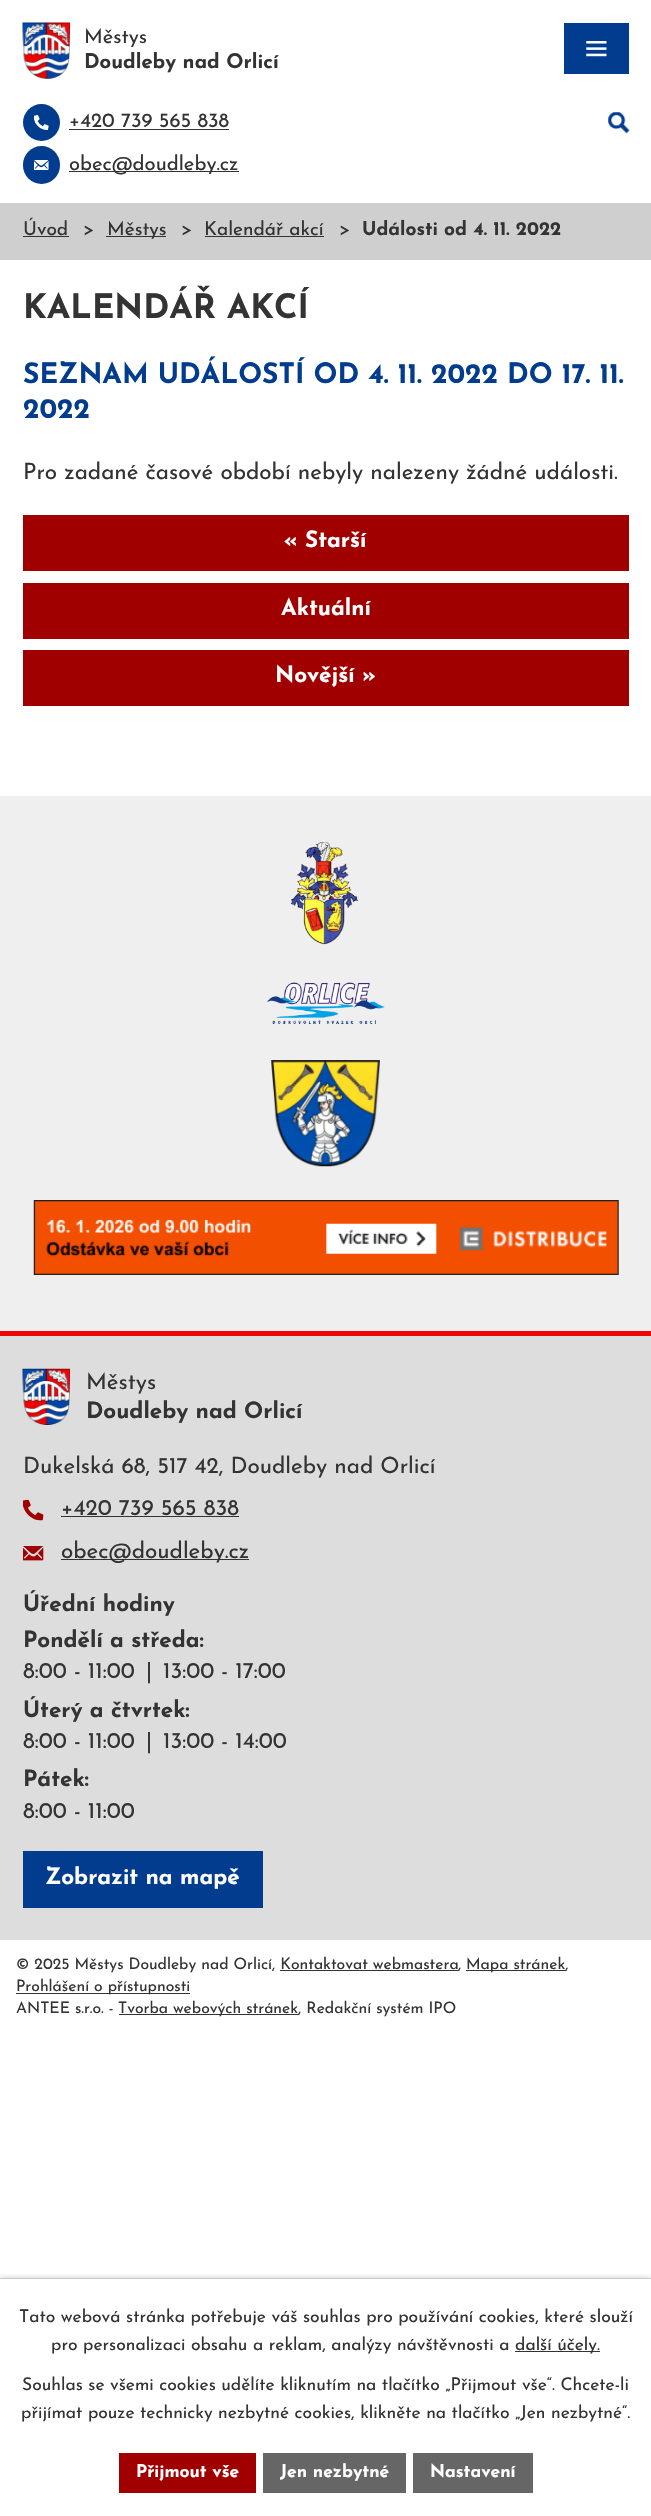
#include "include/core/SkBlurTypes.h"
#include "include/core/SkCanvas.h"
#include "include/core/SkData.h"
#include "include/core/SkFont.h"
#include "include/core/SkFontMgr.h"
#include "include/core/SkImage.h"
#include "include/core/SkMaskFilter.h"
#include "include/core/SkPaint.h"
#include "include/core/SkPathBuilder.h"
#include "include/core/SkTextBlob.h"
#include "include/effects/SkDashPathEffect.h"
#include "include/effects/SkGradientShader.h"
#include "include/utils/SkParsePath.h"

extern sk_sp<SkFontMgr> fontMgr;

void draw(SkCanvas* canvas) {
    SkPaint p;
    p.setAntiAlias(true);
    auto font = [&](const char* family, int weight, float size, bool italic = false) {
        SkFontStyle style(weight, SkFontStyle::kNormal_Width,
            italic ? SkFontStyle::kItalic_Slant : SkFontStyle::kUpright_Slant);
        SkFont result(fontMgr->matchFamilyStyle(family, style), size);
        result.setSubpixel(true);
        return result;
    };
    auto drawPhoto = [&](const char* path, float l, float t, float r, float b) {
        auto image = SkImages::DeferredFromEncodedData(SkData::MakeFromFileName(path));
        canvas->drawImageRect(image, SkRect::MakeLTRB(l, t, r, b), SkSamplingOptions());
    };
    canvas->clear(0xFFFFFFFF);
    drawPhoto("media/1.png", 22, 22, 70, 79);
    auto font1 = font("Josefin Sans", 400, 20.25f);
    p.setColor(0xFF333333);
    canvas->drawString("Městys", 84, 43, font1, p);
    auto font2 = font("Josefin Sans", 700, 20.25f);
    canvas->drawString("Doudleby nad Orlicí", 84, 68, font2, p);
    p.setColor(0xFF023C8E);
    canvas->drawCircle(41.5f, 122.5f, 18.5f, p);
    p.setColor(0xFF333333);
    canvas->drawString("+420 739 565 838", 69, 127, font1, p);
    canvas->drawRect(SkRect::MakeLTRB(69, 129, 229, 130), p);
    drawPhoto("media/2.png", 34, 115, 49, 130);
    p.setColor(0xFF023C8E);
    canvas->drawRoundRect(SkRect::MakeLTRB(23, 146, 60, 184), 18.5f, 18.5f, p);
    p.setColor(0xFF333333);
    canvas->drawRect(SkRect::MakeLTRB(69, 171, 239, 172), p);
    canvas->drawString("obec@doudleby.cz", 69, 170, font1, p);
    drawPhoto("media/3.png", 34, 160, 49, 170);
    drawPhoto("media/4.png", 608, 112, 630, 134);
    p.setColor(0xFF023C8E);
    canvas->drawRect(SkRect::MakeLTRB(564, 23, 629, 74), p);
    drawPhoto("media/5.png", 586, 41, 607, 57);
    p.setColor(0xFFCFCFCF);
    canvas->drawRect(SkRect::MakeLTRB(0, 203, 651, 260), p);
    auto font3 = font("Josefin Sans", 400, 19.1f);
    p.setColor(0xFF333333);
    canvas->drawString("Úvod", 23, 235, font3, p);
    canvas->drawRect(SkRect::MakeLTRB(23, 236, 69, 237), p);
    canvas->drawString(">", 83, 235, font3, p);
    canvas->drawRect(SkRect::MakeLTRB(106, 236, 166, 237), p);
    {
        const struct { const char* s; float x, y; } items[] = {
            {"Městys", 107, 235},
            {">", 181, 235},
            {"Kalendář akcí", 204, 235},
        };
        for (auto [s, x, y] : items) {
            canvas->drawString(s, x, y, font3, p);
        }
    }
    canvas->drawRect(SkRect::MakeLTRB(205, 236, 324, 237), p);
    canvas->drawString(">", 339, 235, font3, p);
    auto font4 = font("Josefin Sans", 700, 19.1f);
    canvas->drawString("Události od 4. 11. 2022", 362, 235, font4, p);
    auto font5 = font("Josefin Sans", 700, 33.75f);
    canvas->drawString("KALENDÁŘ AKCÍ", 23, 318, font5, p);
    auto font6 = font("Josefin Sans", 700, 28.1f);
    p.setColor(0xFF023C8E);
    canvas->drawString("SEZNAM UDÁLOSTÍ OD 4. 11. 2022 DO 17. 11.", 23, 383, font6, p);
    canvas->drawString("2022", 23, 418, font6, p);
    auto font7 = font("Josefin Sans", 400, 22.5f);
    p.setColor(0xFF333333);
    canvas->drawString("Pro zadané časové období nebyly nalezeny žádné události.", 23, 479, font7, p);
    p.setColor(0xFFA00100);
    canvas->drawRect(SkRect::MakeLTRB(23, 515, 629, 571), p);
    auto font8 = font("Josefin Sans", 700, 22.5f);
    p.setColor(0xFFFFFFFF);
    canvas->drawString("« Starší", 284, 547, font8, p);
    p.setColor(0xFFA00100);
    canvas->drawRect(SkRect::MakeLTRB(23, 583, 629, 639), p);
    p.setColor(0xFFFFFFFF);
    canvas->drawString("Aktuální", 281, 615, font8, p);
    p.setColor(0xFFA00100);
    canvas->drawRect(SkRect::MakeLTRB(23, 650, 629, 706), p);
    p.setColor(0xFFFFFFFF);
    canvas->drawString("Novější »", 275, 682, font8, p);
    p.setColor(0xFFDDDDDD);
    canvas->drawRect(SkRect::MakeLTRB(0, 1336, 651, 1940), p);
    p.setColor(0xFFEFEFEF);
    canvas->drawRect(SkRect::MakeLTRB(0, 796, 651, 1331), p);
    drawPhoto("media/6.png", 290, 842, 359, 945);
    drawPhoto("media/7.png", 267, 982, 385, 1025);
    drawPhoto("media/8.png", 271, 1060, 380, 1167);
    drawPhoto("media/9.png", 33, 1200, 619, 1275);
    p.setColor(0xFFED0508);
    canvas->drawRect(SkRect::MakeLTRB(0, 1331, 651, 1336), p);
    drawPhoto("media/10.png", 22, 1368, 70, 1425);
    p.setColor(0xFF333333);
    canvas->drawString("Městys", 86, 1389, font7, p);
    canvas->drawString("Doudleby nad Orlicí", 86, 1418, font8, p);
    canvas->drawString("Dukelská 68, 517 42, Doudleby nad Orlicí", 23, 1473, font7, p);
    drawPhoto("media/11.png", 23, 1499, 44, 1521);
    canvas->drawString("+420 739 565 838", 61, 1515, font7, p);
    canvas->drawRect(SkRect::MakeLTRB(61, 1516, 239, 1517), p);
    drawPhoto("media/12.png", 23, 1546, 44, 1561);
    canvas->drawRect(SkRect::MakeLTRB(61, 1559, 249, 1560), p);
    canvas->drawString("obec@doudleby.cz", 61, 1558, font7, p);
    canvas->drawString("Úřední hodiny", 23, 1611, font8, p);
    canvas->drawString("Pondělí a středa:", 23, 1647, font8, p);
    {
        const struct { const char* s; float x, y; } items[] = {
            {"8:00 - 11:00", 23, 1678},
            {"|", 146, 1678},
            {"13:00 - 17:00", 163, 1678},
        };
        for (auto [s, x, y] : items) {
            canvas->drawString(s, x, y, font7, p);
        }
    }
    canvas->drawString("Úterý a čtvrtek:", 23, 1717, font8, p);
    {
        const struct { const char* s; float x, y; } items[] = {
            {"8:00 - 11:00", 23, 1748},
            {"|", 146, 1748},
            {"13:00 - 14:00", 163, 1748},
        };
        for (auto [s, x, y] : items) {
            canvas->drawString(s, x, y, font7, p);
        }
    }
    canvas->drawString("Pátek:", 23, 1786, font8, p);
    canvas->drawString("8:00 - 11:00", 23, 1818, font7, p);
    p.setColor(0xFF023C8E);
    canvas->drawRect(SkRect::MakeLTRB(23, 1851, 263, 1908), p);
    p.setColor(0xFFFFFFFF);
    canvas->drawString("Zobrazit na mapě", 45, 1884, font8, p);
    auto font9 = font("Josefin Sans", 400, 15.75f);
    p.setColor(0xFF333333);
    canvas->drawString("© 2025 Městys Doudleby nad Orlicí, Kontaktovat webmastera", 16, 1969, font9, p);
    canvas->drawRect(SkRect::MakeLTRB(280, 1970, 459, 1971), p);
    canvas->drawString(",", 458, 1969, font9, p);
    canvas->drawRect(SkRect::MakeLTRB(466, 1970, 566, 1971), p);
    canvas->drawString("Mapa stránek,", 466, 1969, font9, p);
    canvas->drawRect(SkRect::MakeLTRB(16, 1993, 190, 1994), p);
    canvas->drawString("Prohlášení o přístupnosti", 16, 1991, font9, p);
    canvas->drawString("ANTEE s.r.o. -", 16, 2013, font9, p);
    canvas->drawRect(SkRect::MakeLTRB(119, 2014, 299, 2015), p);
    canvas->drawString("Tvorba webových stránek, Redakční systém IPO", 118, 2013, font9, p);
    canvas->save();
    canvas->clipRect(SkRect::MakeLTRB(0, 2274, 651, 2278));
    p.setColor(0x33000000);
    p.setMaskFilter(SkMaskFilter::MakeBlur(kNormal_SkBlurStyle, 3));
    canvas->drawRect(SkRect::MakeLTRB(0, 2278, 651, 2516), p);
    p.setMaskFilter(nullptr);
    canvas->restore();
    p.setColor(0xFFCCCCCC);
    canvas->drawRect(SkRect::MakeLTRB(0, 2278, 651, 2279), p);
    auto font10 = font("Josefin Sans", 400, 17.5f);
    p.setColor(0xFF333333);
    canvas->drawString("Tato webová stránka potřebuje váš souhlas pro používání cookies, které slouží", 19, 2322, font10, p);
    canvas->drawString("pro personalizaci obsahu a reklam, analýzy návštěvnosti a", 51, 2350, font10, p);
    canvas->drawRect(SkRect::MakeLTRB(515, 2351, 600, 2352), p);
    {
        const struct { const char* s; float x, y; } items[] = {
            {"další účely.", 515, 2350},
            {"Souhlas se všemi cookies udělíte kliknutím na tlačítko „Přijmout vše“. Chcete-li", 22, 2390},
            {"přijímat pouze technicky nezbytné cookies, klikněte na tlačítko „Jen nezbytné“.", 21, 2418},
        };
        for (auto [s, x, y] : items) {
            canvas->drawString(s, x, y, font10, p);
        }
    }
    p.setColor(0xFFA00100);
    canvas->drawRect(SkRect::MakeLTRB(119, 2453, 256, 2493), p);
    auto font11 = font("Josefin Sans", 700, 17.5f);
    p.setColor(0xFFFFFFFF);
    canvas->drawString("Přijmout vše", 136, 2477, font11, p);
    p.setColor(0xFF666666);
    canvas->drawRect(SkRect::MakeLTRB(263, 2453, 406, 2493), p);
    p.setColor(0xFFFFFFFF);
    canvas->drawString("Jen nezbytné", 280, 2477, font11, p);
    p.setColor(0xFF666666);
    canvas->drawRect(SkRect::MakeLTRB(413, 2453, 533, 2493), p);
    p.setColor(0xFFFFFFFF);
    canvas->drawString("Nastavení", 430, 2477, font11, p);
}
